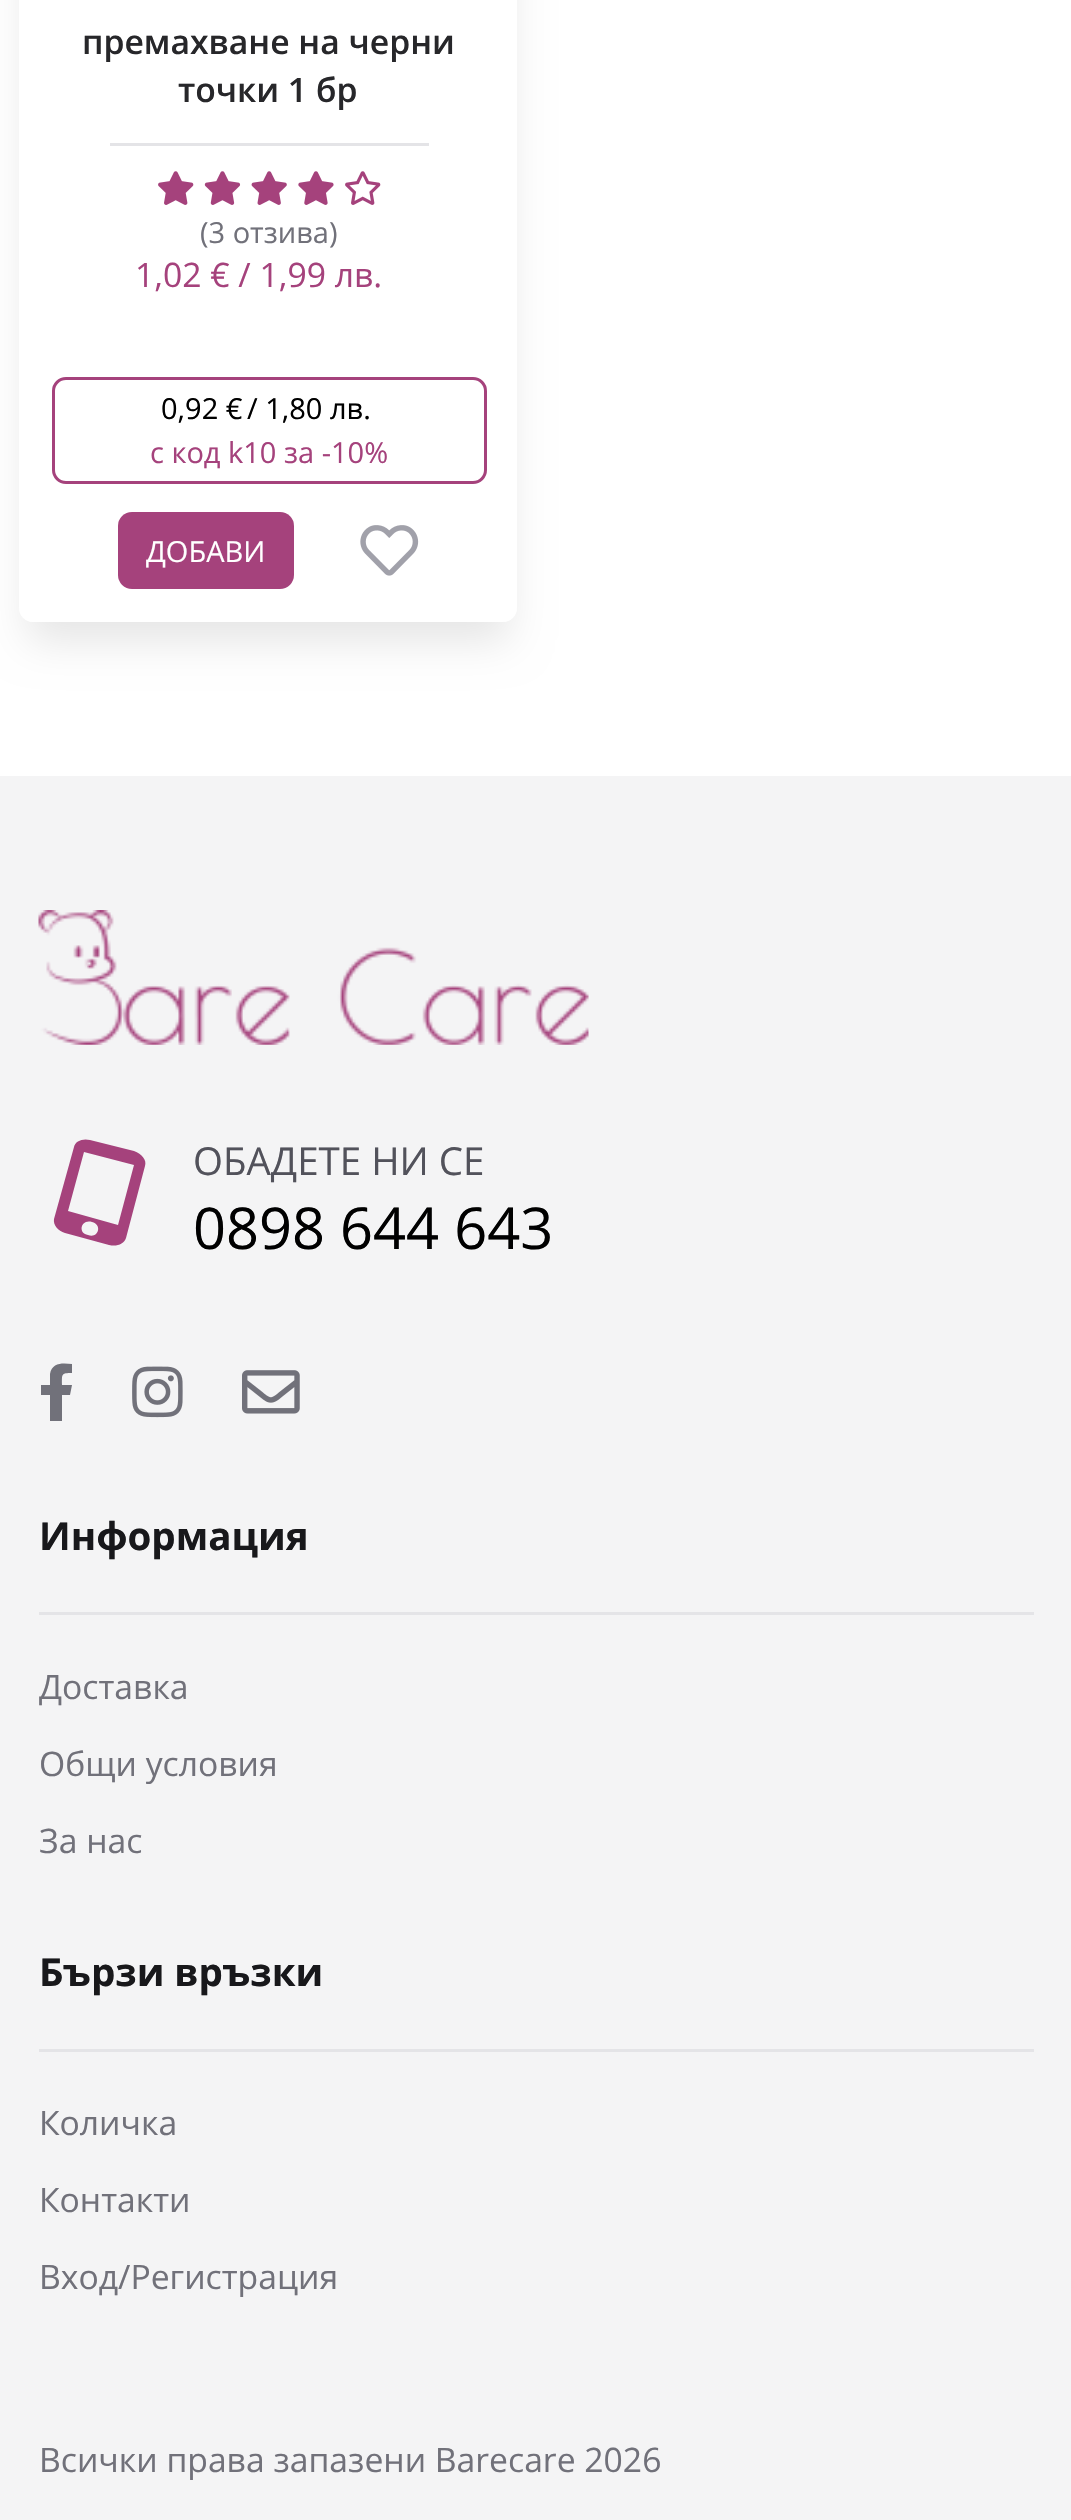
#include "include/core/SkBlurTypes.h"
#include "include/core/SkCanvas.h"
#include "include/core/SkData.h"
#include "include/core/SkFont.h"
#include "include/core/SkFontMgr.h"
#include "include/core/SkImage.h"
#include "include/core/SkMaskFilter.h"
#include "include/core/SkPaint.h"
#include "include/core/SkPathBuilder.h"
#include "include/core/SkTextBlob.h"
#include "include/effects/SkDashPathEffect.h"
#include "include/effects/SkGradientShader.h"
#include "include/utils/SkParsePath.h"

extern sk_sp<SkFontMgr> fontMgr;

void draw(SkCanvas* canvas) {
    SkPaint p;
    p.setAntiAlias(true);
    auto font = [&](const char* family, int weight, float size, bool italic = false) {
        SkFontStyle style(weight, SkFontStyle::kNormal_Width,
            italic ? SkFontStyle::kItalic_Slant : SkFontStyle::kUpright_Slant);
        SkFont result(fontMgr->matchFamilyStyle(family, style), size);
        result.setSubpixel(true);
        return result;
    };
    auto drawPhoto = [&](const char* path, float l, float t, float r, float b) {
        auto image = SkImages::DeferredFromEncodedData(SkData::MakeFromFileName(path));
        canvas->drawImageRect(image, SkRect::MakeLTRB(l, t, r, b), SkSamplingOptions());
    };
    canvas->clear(0xFFFFFFFF);
    canvas->save();
    canvas->clipPath(SkPathBuilder(SkPathFillType::kEvenOdd).moveTo(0, 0).lineTo(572, 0).lineTo(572, 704).lineTo(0, 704).close().moveTo(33, -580).lineTo(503, -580).cubicTo(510.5f, -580, 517, -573.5f, 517, -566).lineTo(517, 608).cubicTo(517, 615.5f, 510.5f, 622, 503, 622).lineTo(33, 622).cubicTo(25.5f, 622, 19, 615.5f, 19, 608).lineTo(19, -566).cubicTo(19, -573.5f, 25.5f, -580, 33, -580).close().detach(), true);
    p.setColor(0x1A000000);
    p.setMaskFilter(SkMaskFilter::MakeBlur(kNormal_SkBlurStyle, 20.5f));
    canvas->drawRoundRect(SkRect::MakeLTRB(28, -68, 509, 641), 6, 6, p);
    p.setMaskFilter(nullptr);
    canvas->restore();
    p.setStyle(SkPaint::kStroke_Style);
    p.setStrokeWidth(3);
    p.setColor(0xFFFFFFFF);
    canvas->drawRoundRect(SkRect::MakeLTRB(20.5f, -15.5f, 515.5f, 620.5f), 12.5f, 12.5f, p);
    auto font1 = font("Open Sans", 600, 33.7f);
    p.setStyle(SkPaint::kFill_Style);
    p.setColor(0xFF27272A);
    canvas->drawString("премахване на черни", 82, 54, font1, p);
    canvas->drawString("точки 1 бр", 178, 102, font1, p);
    p.setColor(0xFFE4E4E7);
    canvas->drawRect(SkRect::MakeLTRB(110, 143, 429, 146), p);
    drawPhoto("media/1.png", 158, 171, 194, 205);
    drawPhoto("media/2.png", 204, 171, 241, 205);
    drawPhoto("media/3.png", 251, 171, 287, 205);
    drawPhoto("media/4.png", 298, 171, 334, 205);
    drawPhoto("media/5.png", 345, 171, 381, 205);
    auto font2 = font("Open Sans", 400, 29);
    p.setColor(0xFF71717A);
    canvas->drawString("(3 отзива)", 200, 243, font2, p);
    auto font3 = font("Open Sans", 400, 33.7f);
    p.setColor(0xFFA5427C);
    canvas->drawString("1,02 € / 1,99 лв.", 135, 287, font3, p);
    p.setStyle(SkPaint::kStroke_Style);
    canvas->drawRoundRect(SkRect::MakeLTRB(53.5f, 378.5f, 485.5f, 482.5f), 12.5f, 12.5f, p);
    p.setStyle(SkPaint::kFill_Style);
    p.setColor(0xFF000000);
    canvas->drawString("0,92 €", 161, 419, font2, p);
    canvas->drawString("/ 1,80 лв.", 247, 419, font2, p);
    p.setColor(0xFFA5427C);
    canvas->drawString("с код k10 за -10%", 150, 463, font2, p);
    canvas->drawRoundRect(SkRect::MakeLTRB(118, 512, 294, 589), 14, 14, p);
    p.setColor(0xFFFFFFFF);
    canvas->drawString("ДОБАВИ", 146, 562, font2, p);
    drawPhoto("media/6.png", 360, 525, 419, 576);
    p.setColor(0xFFF4F4F5);
    canvas->drawRect(SkRect::MakeLTRB(0, 776, 1071, 2520), p);
    drawPhoto("media/7.png", 38, 910, 589, 1045);
    p.setColor(0xFFA5427C);
    canvas->drawPath(SkPathBuilder().moveTo(134, 1151).lineTo(90, 1140).cubicTo(83, 1138, 75, 1141, 74, 1147).lineTo(54, 1219).cubicTo(53, 1225, 58, 1231, 65, 1233).lineTo(109, 1245).cubicTo(117, 1247, 124, 1244, 126, 1238).lineTo(145, 1166).cubicTo(147, 1160, 142, 1154, 134, 1151).close().moveTo(88, 1235).cubicTo(78, 1234, 80, 1219, 92, 1222).cubicTo(103, 1225, 98, 1239, 88, 1235).close().moveTo(118, 1225).lineTo(68, 1211).lineTo(84, 1152).lineTo(134, 1165).close().detach(), p);
    auto font4 = font("Open Sans", 400, 38.5f);
    p.setColor(0xFF52525B);
    canvas->drawString("ОБАДЕТЕ НИ СЕ", 193, 1175, font4, p);
    auto font5 = font("Open Sans", 400, 57.75f);
    p.setColor(0xFF000000);
    canvas->drawString("0898 644 643", 193, 1249, font5, p);
    p.setColor(0xFF71717A);
    canvas->drawPath(SkPathBuilder().moveTo(70, 1395).lineTo(62, 1395).lineTo(62, 1421).lineTo(50, 1421).lineTo(50, 1395).lineTo(41, 1395).lineTo(41, 1385).lineTo(50, 1385).lineTo(50, 1374).cubicTo(52, 1362, 63, 1363, 72, 1364).lineTo(72, 1373).cubicTo(61, 1373, 62, 1374, 62, 1385).lineTo(72, 1385).close().detach(), p);
    drawPhoto("media/8.png", 132, 1366, 183, 1418);
    drawPhoto("media/9.png", 242, 1370, 300, 1414);
    p.setColor(0xFFE4E4E7);
    canvas->drawRect(SkRect::MakeLTRB(39, 1612, 1034, 1615), p);
    auto font6 = font("Open Sans", 700, 38.5f);
    p.setColor(0xFF18181B);
    canvas->drawString("Информация", 39, 1550, font6, p);
    p.setColor(0xFF71717A);
    {
        const struct { const char* s; float x, y; } items[] = {
            {"Доставка", 39, 1699},
            {"Общи условия", 39, 1776},
            {"За нас", 39, 1853},
        };
        for (auto [s, x, y] : items) {
            canvas->drawString(s, x, y, font3, p);
        }
    }
    p.setColor(0xFFE4E4E7);
    canvas->drawRect(SkRect::MakeLTRB(39, 2049, 1034, 2052), p);
    p.setColor(0xFF18181B);
    canvas->drawString("Бързи връзки", 39, 1986, font6, p);
    p.setColor(0xFF71717A);
    {
        const struct { const char* s; float x, y; } items[] = {
            {"Количка", 39, 2135},
            {"Контакти", 39, 2212},
            {"Вход/Регистрация", 39, 2289},
            {"Всички права запазени Barecare 2026", 39, 2472},
        };
        for (auto [s, x, y] : items) {
            canvas->drawString(s, x, y, font3, p);
        }
    }
}
